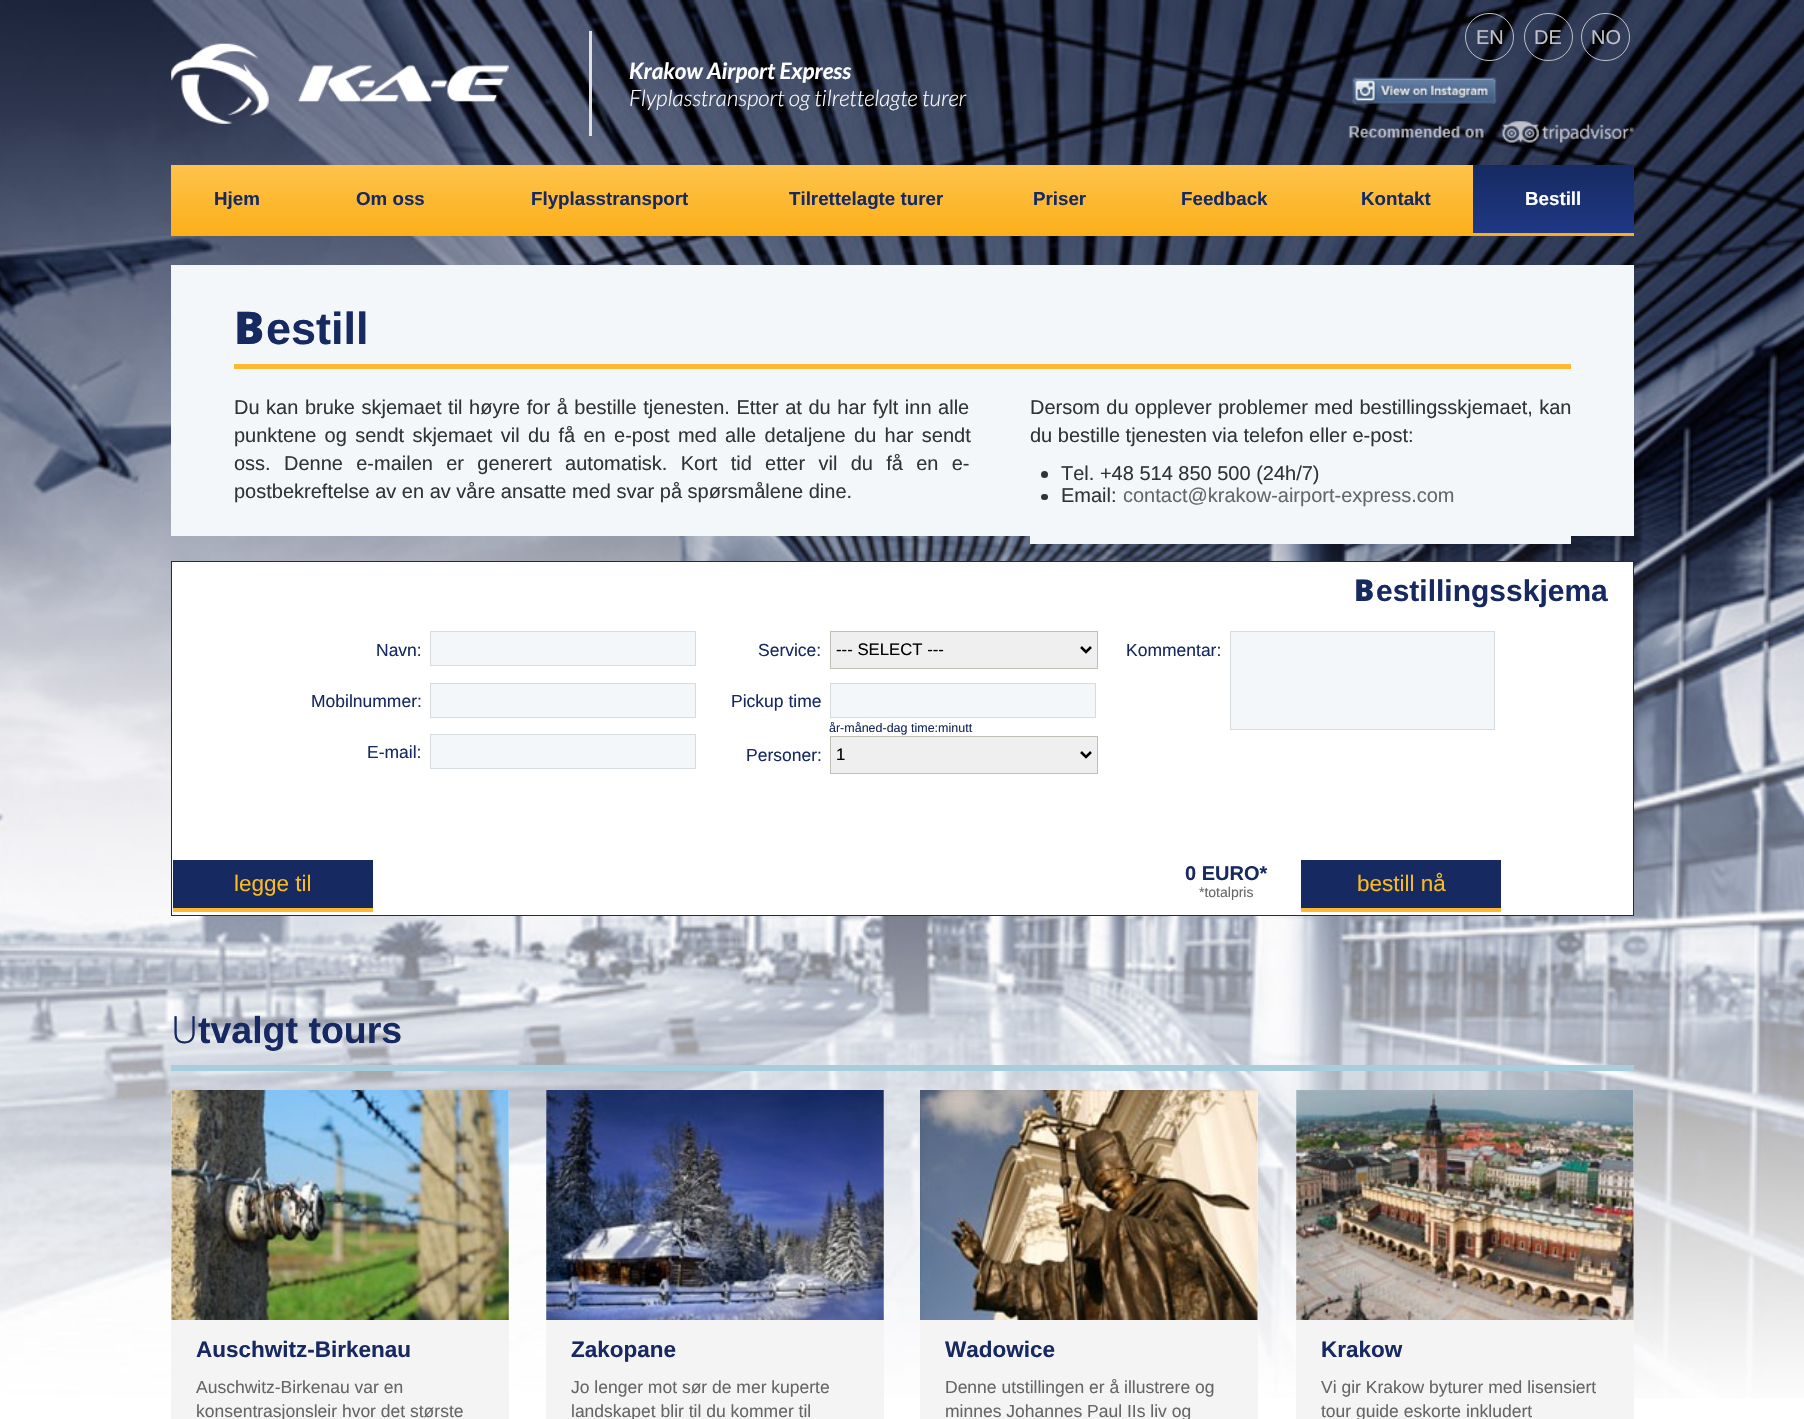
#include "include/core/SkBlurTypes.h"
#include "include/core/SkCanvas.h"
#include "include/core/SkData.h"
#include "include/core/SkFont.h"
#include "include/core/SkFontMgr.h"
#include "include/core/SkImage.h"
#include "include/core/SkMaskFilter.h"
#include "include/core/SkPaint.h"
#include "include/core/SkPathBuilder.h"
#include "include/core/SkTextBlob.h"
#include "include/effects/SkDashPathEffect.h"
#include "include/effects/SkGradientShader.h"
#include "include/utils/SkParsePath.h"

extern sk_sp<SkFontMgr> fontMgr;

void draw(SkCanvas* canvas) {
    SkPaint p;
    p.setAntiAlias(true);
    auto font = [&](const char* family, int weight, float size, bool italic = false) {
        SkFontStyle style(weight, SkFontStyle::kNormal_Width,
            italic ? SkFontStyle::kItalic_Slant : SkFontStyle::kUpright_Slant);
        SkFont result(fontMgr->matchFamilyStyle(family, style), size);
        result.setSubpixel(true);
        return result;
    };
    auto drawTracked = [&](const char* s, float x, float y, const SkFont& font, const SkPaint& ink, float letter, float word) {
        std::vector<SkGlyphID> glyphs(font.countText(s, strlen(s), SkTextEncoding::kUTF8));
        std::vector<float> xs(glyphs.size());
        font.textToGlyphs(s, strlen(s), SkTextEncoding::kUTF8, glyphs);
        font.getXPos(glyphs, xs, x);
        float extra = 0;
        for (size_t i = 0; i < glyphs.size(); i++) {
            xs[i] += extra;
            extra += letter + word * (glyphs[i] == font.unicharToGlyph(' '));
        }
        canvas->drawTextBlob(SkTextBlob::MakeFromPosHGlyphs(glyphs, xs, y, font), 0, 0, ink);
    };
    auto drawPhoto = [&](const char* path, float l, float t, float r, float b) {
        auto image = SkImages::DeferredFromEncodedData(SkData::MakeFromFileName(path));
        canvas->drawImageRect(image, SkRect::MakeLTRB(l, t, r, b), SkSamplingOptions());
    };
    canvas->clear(0xFFFFFFFF);
    drawPhoto("media/1.png", 0, 0, 1804, 1398);
    p.setStyle(SkPaint::kStroke_Style);
    p.setStrokeWidth(1);
    p.setColor(0xFFC0C0C8);
    canvas->drawRoundRect(SkRect::MakeLTRB(1465.5f, 13.5f, 1513.5f, 60.5f), 23.5f, 23.5f, p);
    auto font1 = font("Arimo", 400, 20);
    p.setStyle(SkPaint::kFill_Style);
    canvas->drawString("EN", 1476, 44, font1, p);
    p.setStyle(SkPaint::kStroke_Style);
    canvas->drawRoundRect(SkRect::MakeLTRB(1524.5f, 13.5f, 1572.5f, 60.5f), 23.5f, 23.5f, p);
    p.setStyle(SkPaint::kFill_Style);
    canvas->drawString("DE", 1534, 44, font1, p);
    p.setStyle(SkPaint::kStroke_Style);
    canvas->drawRoundRect(SkRect::MakeLTRB(1581.5f, 13.5f, 1629.5f, 60.5f), 23.5f, 23.5f, p);
    p.setStyle(SkPaint::kFill_Style);
    canvas->drawString("NO", 1591, 44, font1, p);
    drawPhoto("media/2.png", 1352, 77, 1497, 104);
    drawPhoto("media/3.png", 1348, 121, 1634, 143);
    drawPhoto("media/4.png", 171, 43, 509, 124);
    p.setColor(0xFFE1E1E1);
    canvas->drawRect(SkRect::MakeLTRB(589, 31, 592, 136), p);
    auto font2 = font("Lato", 700, 22.5f, true);
    p.setColor(0xFFFFFFFF);
    canvas->drawString("Krakow Airport Express", 629, 79, font2, p);
    auto font3 = font("Lato", 300, 22.5f, true);
    canvas->drawString("Flyplasstransport og tilrettelagte turer", 629, 106, font3, p);
    {
        const SkColor colors[] = {0xFFFEC34C, 0xFFFCAF19};
        const float stops[] = {0, 1};
        const SkPoint ends[] = {{237, 165}, {237, 236}};
        p.setShader(SkGradientShader::MakeLinear(ends, colors, stops, 2, SkTileMode::kClamp));
        p.setAlpha(255);
    }
    canvas->drawRect(SkRect::MakeLTRB(171, 165, 303, 236), p);
    auto font4 = font("Arimo", 700, 18.75f);
    p.setShader(nullptr);
    p.setColor(0xFF162961);
    canvas->drawString("Hjem", 214, 205, font4, p);
    {
        const SkColor colors[] = {0xFFFEC34C, 0xFFFCAF19};
        const float stops[] = {0, 1};
        const SkPoint ends[] = {{391, 165}, {391, 236}};
        p.setShader(SkGradientShader::MakeLinear(ends, colors, stops, 2, SkTileMode::kClamp));
        p.setAlpha(255);
    }
    canvas->drawRect(SkRect::MakeLTRB(303, 165, 479, 236), p);
    p.setShader(nullptr);
    p.setColor(0xFF162961);
    canvas->drawString("Om oss", 356, 205, font4, p);
    {
        const SkColor colors[] = {0xFFFEC34C, 0xFFFCAF19};
        const float stops[] = {0, 1};
        const SkPoint ends[] = {{610, 165}, {610, 236}};
        p.setShader(SkGradientShader::MakeLinear(ends, colors, stops, 2, SkTileMode::kClamp));
        p.setAlpha(255);
    }
    canvas->drawRect(SkRect::MakeLTRB(479, 165, 741, 236), p);
    p.setShader(nullptr);
    p.setColor(0xFF162961);
    canvas->drawString("Flyplasstransport", 531, 205, font4, p);
    {
        const SkColor colors[] = {0xFFFEC34C, 0xFFFCAF19};
        const float stops[] = {0, 1};
        const SkPoint ends[] = {{866, 165}, {866, 236}};
        p.setShader(SkGradientShader::MakeLinear(ends, colors, stops, 2, SkTileMode::kClamp));
        p.setAlpha(255);
    }
    canvas->drawRect(SkRect::MakeLTRB(741, 165, 990, 236), p);
    p.setShader(nullptr);
    p.setColor(0xFF162961);
    canvas->drawString("Tilrettelagte turer", 789, 205, font4, p);
    {
        const SkColor colors[] = {0xFFFEC34C, 0xFFFCAF19};
        const float stops[] = {0, 1};
        const SkPoint ends[] = {{1059, 165}, {1059, 236}};
        p.setShader(SkGradientShader::MakeLinear(ends, colors, stops, 2, SkTileMode::kClamp));
        p.setAlpha(255);
    }
    canvas->drawRect(SkRect::MakeLTRB(990, 165, 1129, 236), p);
    p.setShader(nullptr);
    p.setColor(0xFF162961);
    canvas->drawString("Priser", 1033, 205, font4, p);
    {
        const SkColor colors[] = {0xFFFEC34C, 0xFFFCAF19};
        const float stops[] = {0, 1};
        const SkPoint ends[] = {{1224, 165}, {1224, 236}};
        p.setShader(SkGradientShader::MakeLinear(ends, colors, stops, 2, SkTileMode::kClamp));
        p.setAlpha(255);
    }
    canvas->drawRect(SkRect::MakeLTRB(1129, 165, 1319, 236), p);
    p.setShader(nullptr);
    p.setColor(0xFF162961);
    canvas->drawString("Feedback", 1181, 205, font4, p);
    {
        const SkColor colors[] = {0xFFFEC34C, 0xFFFCAF19};
        const float stops[] = {0, 1};
        const SkPoint ends[] = {{1396, 165}, {1396, 236}};
        p.setShader(SkGradientShader::MakeLinear(ends, colors, stops, 2, SkTileMode::kClamp));
        p.setAlpha(255);
    }
    canvas->drawRect(SkRect::MakeLTRB(1319, 165, 1473, 236), p);
    p.setShader(nullptr);
    p.setColor(0xFF162961);
    canvas->drawString("Kontakt", 1361, 205, font4, p);
    {
        const SkColor colors[] = {0xFFFEC34C, 0xFFFCAF19};
        const float stops[] = {0, 1};
        const SkPoint ends[] = {{1553, 165}, {1553, 236}};
        p.setShader(SkGradientShader::MakeLinear(ends, colors, stops, 2, SkTileMode::kClamp));
        p.setAlpha(255);
    }
    canvas->drawRect(SkRect::MakeLTRB(1473, 233, 1634, 236), p);
    {
        const SkColor colors[] = {0xFF162A62, 0xFF1F3885};
        const float stops[] = {0, 1};
        const SkPoint ends[] = {{1553, 165}, {1553, 233}};
        p.setShader(SkGradientShader::MakeLinear(ends, colors, stops, 2, SkTileMode::kClamp));
        p.setAlpha(255);
    }
    canvas->drawRect(SkRect::MakeLTRB(1473, 165, 1634, 233), p);
    p.setShader(nullptr);
    p.setColor(0xFFFFFFFF);
    canvas->drawString("Bestill", 1525, 205, font4, p);
    p.setColor(0xFFF3F7FA);
    canvas->drawRect(SkRect::MakeLTRB(171, 265, 1634, 536), p);
    p.setColor(0xFFFDB934);
    canvas->drawRect(SkRect::MakeLTRB(234, 364, 1571, 369), p);
    auto font5 = font("Noto Sans", 900, 45);
    p.setColor(0xFF162961);
    canvas->drawString("B", 234, 344, font5, p);
    auto font6 = font("Arimo", 700, 45);
    canvas->drawString("estill", 266, 344, font6, p);
    p.setColor(0xFF333333);
    drawTracked("Du kan bruke skjemaet til høyre for å bestille tjenesten. Etter at du har fylt inn alle", 234, 414, font1, p, 0, 1);
    drawTracked("punktene og sendt skjemaet vil du få en e-post med alle detaljene du har sendt", 234, 442, font1, p, 0, 2.75f);
    drawTracked("oss. Denne e-mailen er generert automatisk. Kort tid etter vil du få en e-", 234, 470, font1, p, 0, 7.75f);
    canvas->drawString("postbekreftelse av en av våre ansatte med svar på spørsmålene dine.", 234, 498, font1, p);
    p.setColor(0xFFF3F7FA);
    canvas->drawRect(SkRect::MakeLTRB(1030, 536, 1571, 544), p);
    p.setColor(0xFF333333);
    drawTracked("Dersom du opplever problemer med bestillingsskjemaet, kan", 1030, 414, font1, p, 0, 0.75f);
    canvas->drawString("du bestille tjenesten via telefon eller e-post:", 1030, 442, font1, p);
    canvas->drawCircle(1044.5f, 474.5f, 3.5f, p);
    canvas->drawString("Tel. +48 514 850 500 (24h/7)", 1061, 480, font1, p);
    canvas->drawRoundRect(SkRect::MakeLTRB(1041, 494, 1048, 500), 3, 3, p);
    canvas->drawString("Email:", 1061, 502, font1, p);
    p.setColor(0xFF666666);
    canvas->drawString("contact@krakow-airport-express.com", 1123, 502, font1, p);
    p.setColor(0xFFFFFFFF);
    canvas->drawRect(SkRect::MakeLTRB(171.5f, 561.5f, 1633.5f, 915.5f), p);
    p.setStyle(SkPaint::kStroke_Style);
    p.setColor(0xFF162961);
    canvas->drawRect(SkRect::MakeLTRB(171.5f, 561.5f, 1633.5f, 915.5f), p);
    auto font7 = font("Noto Sans", 900, 30);
    p.setStyle(SkPaint::kFill_Style);
    canvas->drawString("B", 1354, 601, font7, p);
    auto font8 = font("Arimo", 700, 30);
    canvas->drawString("estillingsskjema", 1376, 601, font8, p);
    auto font9 = font("Arimo", 400, 17.5f);
    canvas->drawString("Navn:", 376, 656, font9, p);
    p.setColor(0xFFF4F7F9);
    canvas->drawRect(SkRect::MakeLTRB(430.5f, 631.5f, 695.5f, 665.5f), p);
    p.setStyle(SkPaint::kStroke_Style);
    p.setColor(0xFFD5DBDF);
    canvas->drawRect(SkRect::MakeLTRB(430.5f, 631.5f, 695.5f, 665.5f), p);
    p.setStyle(SkPaint::kFill_Style);
    p.setColor(0xFF162961);
    canvas->drawString("Mobilnummer:", 311, 707, font9, p);
    p.setColor(0xFFF4F7F9);
    canvas->drawRect(SkRect::MakeLTRB(430.5f, 683.5f, 695.5f, 717.5f), p);
    p.setStyle(SkPaint::kStroke_Style);
    p.setColor(0xFFD5DBDF);
    canvas->drawRect(SkRect::MakeLTRB(430.5f, 683.5f, 695.5f, 717.5f), p);
    p.setStyle(SkPaint::kFill_Style);
    p.setColor(0xFF162961);
    canvas->drawString("E-mail:", 367, 758, font9, p);
    p.setColor(0xFFF4F7F9);
    canvas->drawRect(SkRect::MakeLTRB(430.5f, 734.5f, 695.5f, 768.5f), p);
    p.setStyle(SkPaint::kStroke_Style);
    p.setColor(0xFFD5DBDF);
    canvas->drawRect(SkRect::MakeLTRB(430.5f, 734.5f, 695.5f, 768.5f), p);
    p.setStyle(SkPaint::kFill_Style);
    p.setColor(0xFF162961);
    canvas->drawString("Service:", 758, 656, font9, p);
    p.setColor(0xFFEFEFEF);
    canvas->drawRect(SkRect::MakeLTRB(830.5f, 631.5f, 1097.5f, 668.5f), p);
    p.setStyle(SkPaint::kStroke_Style);
    p.setColor(0xFFBFBFB5);
    canvas->drawRect(SkRect::MakeLTRB(830.5f, 631.5f, 1097.5f, 668.5f), p);
    p.setStrokeWidth(2.5f);
    p.setColor(0xFF000000);
    canvas->drawPath(SkPathBuilder().moveTo(1081, 647).lineTo(1086, 652).lineTo(1091, 647).detach(), p);
    auto font10 = font("Liberation Sans", 400, 16.75f);
    p.setStyle(SkPaint::kFill_Style);
    canvas->drawString("--- SELECT ---", 836, 655, font10, p);
    p.setColor(0xFF162961);
    canvas->drawString("Pickup time", 731, 707, font9, p);
    p.setColor(0xFFF4F7F9);
    canvas->drawRect(SkRect::MakeLTRB(830.5f, 683.5f, 1095.5f, 717.5f), p);
    p.setStyle(SkPaint::kStroke_Style);
    p.setStrokeWidth(1);
    p.setColor(0xFFD5DBDF);
    canvas->drawRect(SkRect::MakeLTRB(830.5f, 683.5f, 1095.5f, 717.5f), p);
    auto font11 = font("Arimo", 400, 12.5f);
    p.setStyle(SkPaint::kFill_Style);
    p.setColor(0xFF162961);
    canvas->drawString("år-måned-dag time:minutt", 829, 732, font11, p);
    canvas->drawString("Personer:", 746, 761, font9, p);
    p.setColor(0xFFEFEFEF);
    canvas->drawRect(SkRect::MakeLTRB(830.5f, 736.5f, 1097.5f, 773.5f), p);
    p.setStyle(SkPaint::kStroke_Style);
    p.setColor(0xFFBFBFB5);
    canvas->drawRect(SkRect::MakeLTRB(830.5f, 736.5f, 1097.5f, 773.5f), p);
    p.setStrokeWidth(2.5f);
    p.setColor(0xFF000000);
    canvas->drawPath(SkPathBuilder().moveTo(1081, 752).lineTo(1086, 757).lineTo(1091, 752).detach(), p);
    p.setStyle(SkPaint::kFill_Style);
    canvas->drawString("1", 836, 760, font10, p);
    p.setColor(0xFF162961);
    canvas->drawString("Kommentar:", 1126, 656, font9, p);
    p.setColor(0xFFF4F7F9);
    canvas->drawRect(SkRect::MakeLTRB(1230.5f, 631.5f, 1494.5f, 729.5f), p);
    p.setStyle(SkPaint::kStroke_Style);
    p.setStrokeWidth(1);
    p.setColor(0xFFD5DBDF);
    canvas->drawRect(SkRect::MakeLTRB(1230.5f, 631.5f, 1494.5f, 729.5f), p);
    p.setStyle(SkPaint::kFill_Style);
    p.setColor(0xFF162961);
    canvas->drawRect(SkRect::MakeLTRB(173, 860, 373, 908), p);
    p.setColor(0xFFFDB934);
    canvas->drawRect(SkRect::MakeLTRB(173, 908, 373, 912), p);
    auto font12 = font("Liberation Sans", 400, 22.5f);
    p.setColor(0xFFF9BB1F);
    canvas->drawString("legge til", 234, 891, font12, p);
    auto font13 = font("Arimo", 700, 20);
    p.setColor(0xFF162961);
    canvas->drawString("0 EURO*", 1185, 880, font13, p);
    auto font14 = font("Arimo", 400, 14);
    p.setColor(0xFF666666);
    canvas->drawString("*totalpris", 1199, 897, font14, p);
    p.setColor(0xFF162961);
    canvas->drawRect(SkRect::MakeLTRB(1301, 860, 1501, 908), p);
    p.setColor(0xFFFDB934);
    canvas->drawRect(SkRect::MakeLTRB(1301, 908, 1501, 912), p);
    p.setColor(0xFFF9BB1F);
    canvas->drawString("bestill nå", 1357, 891, font12, p);
    p.setColor(0xFFA8CDDD);
    canvas->drawRect(SkRect::MakeLTRB(171, 1065, 1634, 1071), p);
    auto font15 = font("Noto Sans", 300, 37.5f);
    p.setColor(0xFF162961);
    canvas->drawString("U", 171, 1043, font15, p);
    auto font16 = font("Arimo", 700, 37.5f);
    canvas->drawString("tvalgt tours", 198, 1043, font16, p);
    p.setColor(0xFFF4F4F4);
    canvas->drawRect(SkRect::MakeLTRB(171, 1090, 509, 1419), p);
    drawPhoto("media/5.png", 171, 1090, 509, 1320);
    auto font17 = font("Arimo", 700, 22.5f);
    p.setColor(0xFF162961);
    canvas->drawString("Auschwitz-Birkenau", 196, 1357, font17, p);
    p.setColor(0xFF666666);
    canvas->drawString("Auschwitz-Birkenau var en", 196, 1393, font9, p);
    canvas->drawString("konsentrasjonsleir hvor det største", 196, 1417, font9, p);
    p.setColor(0xFFF4F4F4);
    canvas->drawRect(SkRect::MakeLTRB(546, 1090, 884, 1419), p);
    drawPhoto("media/6.png", 546, 1090, 884, 1320);
    p.setColor(0xFF162961);
    canvas->drawString("Zakopane", 571, 1357, font17, p);
    p.setColor(0xFF666666);
    canvas->drawString("Jo lenger mot sør de mer kuperte", 571, 1393, font9, p);
    canvas->drawString("landskapet blir til du kommer til", 571, 1417, font9, p);
    p.setColor(0xFFF4F4F4);
    canvas->drawRect(SkRect::MakeLTRB(920, 1090, 1258, 1419), p);
    drawPhoto("media/7.png", 920, 1090, 1258, 1320);
    p.setColor(0xFF162961);
    canvas->drawString("Wadowice", 945, 1357, font17, p);
    p.setColor(0xFF666666);
    canvas->drawString("Denne utstillingen er å illustrere og", 945, 1393, font9, p);
    canvas->drawString("minnes Johannes Paul IIs liv og", 945, 1417, font9, p);
    p.setColor(0xFFF4F4F4);
    canvas->drawRect(SkRect::MakeLTRB(1296, 1090, 1634, 1419), p);
    drawPhoto("media/8.png", 1296, 1090, 1634, 1320);
    p.setColor(0xFF162961);
    canvas->drawString("Krakow", 1321, 1357, font17, p);
    p.setColor(0xFF666666);
    canvas->drawString("Vi gir Krakow byturer med lisensiert", 1321, 1393, font9, p);
    canvas->drawString("tour guide eskorte inkludert", 1321, 1417, font9, p);
}
